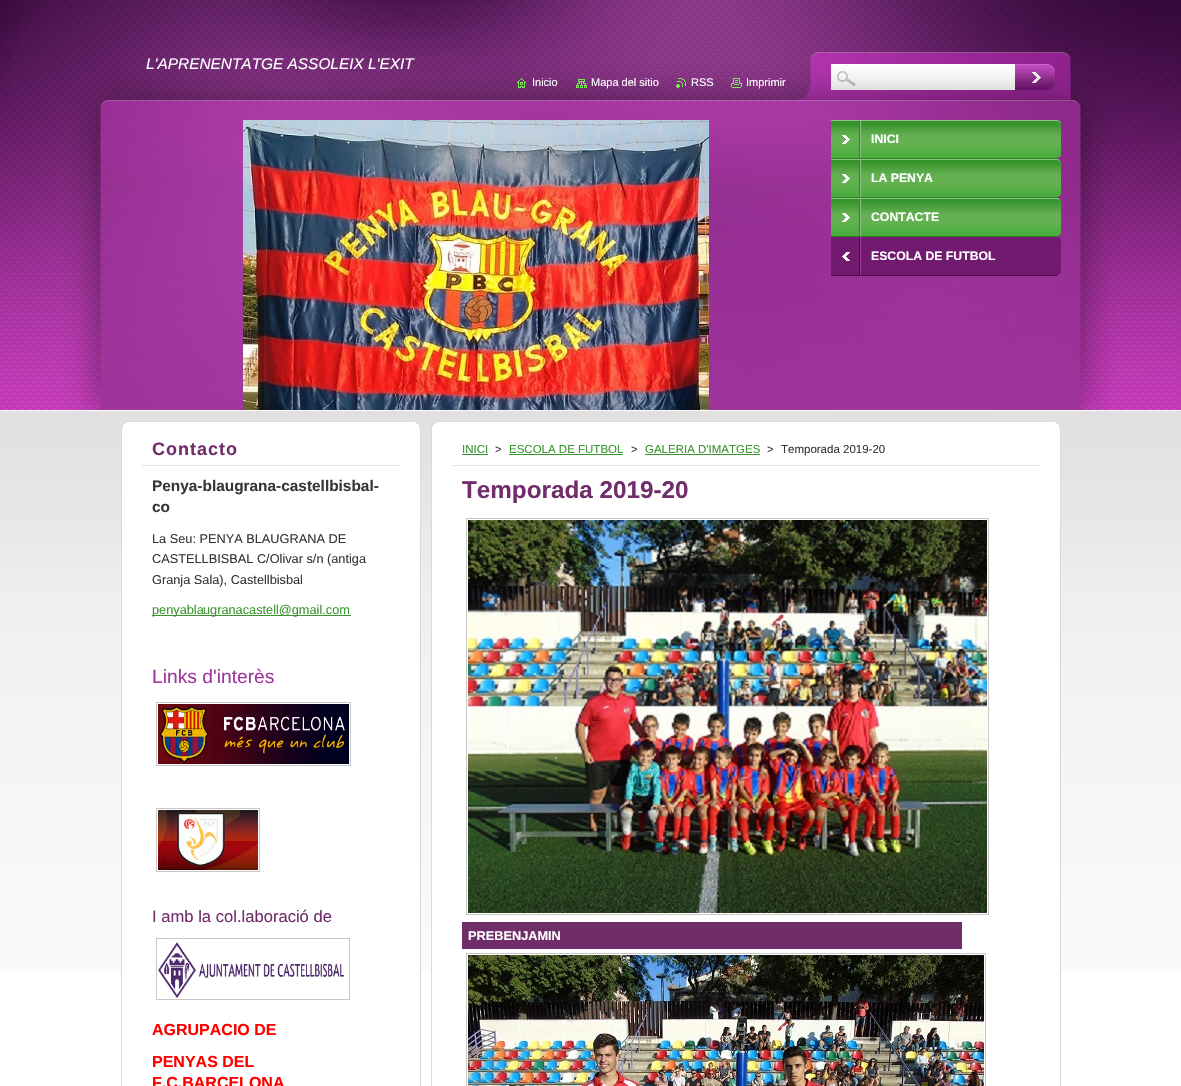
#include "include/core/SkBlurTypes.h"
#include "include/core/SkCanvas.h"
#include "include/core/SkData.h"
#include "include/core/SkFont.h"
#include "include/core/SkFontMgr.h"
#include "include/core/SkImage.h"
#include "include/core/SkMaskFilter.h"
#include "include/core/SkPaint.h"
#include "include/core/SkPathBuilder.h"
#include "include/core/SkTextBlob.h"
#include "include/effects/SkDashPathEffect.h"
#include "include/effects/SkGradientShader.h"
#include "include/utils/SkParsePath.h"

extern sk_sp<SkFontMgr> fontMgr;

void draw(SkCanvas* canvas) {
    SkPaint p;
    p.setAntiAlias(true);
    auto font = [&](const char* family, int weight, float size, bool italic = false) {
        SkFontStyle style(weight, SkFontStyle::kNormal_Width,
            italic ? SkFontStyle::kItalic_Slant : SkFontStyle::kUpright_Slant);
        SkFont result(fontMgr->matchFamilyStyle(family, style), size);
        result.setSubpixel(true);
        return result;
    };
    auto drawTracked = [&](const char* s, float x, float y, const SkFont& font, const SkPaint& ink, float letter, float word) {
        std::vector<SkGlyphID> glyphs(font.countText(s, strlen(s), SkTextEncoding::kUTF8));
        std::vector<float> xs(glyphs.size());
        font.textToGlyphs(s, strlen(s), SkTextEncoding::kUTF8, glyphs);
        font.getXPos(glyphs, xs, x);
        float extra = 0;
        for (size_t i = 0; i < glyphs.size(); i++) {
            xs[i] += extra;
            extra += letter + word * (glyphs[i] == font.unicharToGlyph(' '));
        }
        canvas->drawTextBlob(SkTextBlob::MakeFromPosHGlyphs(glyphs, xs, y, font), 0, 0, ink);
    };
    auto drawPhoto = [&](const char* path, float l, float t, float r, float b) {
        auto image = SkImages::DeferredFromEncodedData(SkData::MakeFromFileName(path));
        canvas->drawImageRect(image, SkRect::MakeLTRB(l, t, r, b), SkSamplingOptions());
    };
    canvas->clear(0xFFFFFFFF);
    drawPhoto("media/1.png", 0, 411, 1181, 972);
    drawPhoto("media/2.png", 0, 0, 1181, 411);
    auto font1 = font("Liberation Sans", 400, 15.4f, true);
    p.setColor(0xFFFFFFFF);
    canvas->drawString("L'APRENENTATGE ASSOLEIX L'EXIT", 146, 69, font1, p);
    drawPhoto("media/3.png", 243, 120, 709, 410);
    drawPhoto("media/4.png", 517, 78, 526, 88);
    auto font2 = font("Liberation Sans", 400, 11);
    canvas->drawString("Inicio", 532, 86, font2, p);
    drawPhoto("media/5.png", 576, 79, 587, 88);
    canvas->drawString("Mapa del sitio", 591, 86, font2, p);
    drawPhoto("media/6.png", 676, 78, 686, 88);
    canvas->drawString("RSS", 691, 86, font2, p);
    drawPhoto("media/7.png", 731, 78, 742, 88);
    canvas->drawString("Imprimir", 746, 86, font2, p);
    canvas->drawRect(SkRect::MakeLTRB(831, 64, 1015, 65), p);
    drawPhoto("media/8.png", 831, 65, 1015, 90);
    drawPhoto("media/9.png", 1015, 64, 1055, 90);
    drawPhoto("media/10.png", 831, 120, 1061, 159);
    auto font3 = font("Liberation Sans", 700, 12.25f);
    canvas->drawString("INICI", 871, 143, font3, p);
    drawPhoto("media/10.png", 831, 159, 1061, 198);
    canvas->drawString("LA PENYA", 871, 182, font3, p);
    drawPhoto("media/10.png", 831, 198, 1061, 237);
    canvas->drawString("CONTACTE", 871, 221, font3, p);
    drawPhoto("media/11.png", 831, 237, 1061, 276);
    canvas->drawString("ESCOLA DE FUTBOL", 871, 260, font3, p);
    drawPhoto("media/12.png", 121, 421, 421, 429);
    {
        const struct { float l, t, r, b; SkColor color; } items[] = {
            {122, 429, 420, 972, 0xFFFFFFFF},
            {420, 429, 421, 1086, 0xFFDADADA},
            {121, 429, 122, 1086, 0xFFDADADA},
            {142, 465, 400, 466, 0xFFE1E1E1},
        };
        for (auto [l, t, r, b, color] : items) {
            p.setColor(color);
            canvas->drawRect(SkRect::MakeLTRB(l, t, r, b), p);
        }
    }
    auto font4 = font("Liberation Sans", 700, 18);
    p.setColor(0xFF712D6A);
    drawTracked("Contacto", 152, 455, font4, p, 1, 0);
    auto font5 = font("Liberation Sans", 700, 15.4f);
    p.setColor(0xFF363636);
    canvas->drawString("Penya-blaugrana-castellbisbal-", 152, 491, font5, p);
    canvas->drawString("co", 152, 512, font5, p);
    auto font6 = font("Liberation Sans", 400, 12.75f);
    {
        const struct { const char* s; float x, y; } items[] = {
            {"La Seu: PENYA BLAUGRANA DE", 152, 543},
            {"CASTELLBISBAL C/Olivar s/n (antiga", 152, 563},
            {"Granja Sala), Castellbisbal", 152, 584},
        };
        for (auto [s, x, y] : items) {
            canvas->drawString(s, x, y, font6, p);
        }
    }
    p.setColor(0xFF39942E);
    canvas->drawRect(SkRect::MakeLTRB(152, 615, 203, 616), p);
    canvas->drawString("penyabla", 152, 614, font6, p);
    canvas->drawRect(SkRect::MakeLTRB(203, 615, 351, 616), p);
    canvas->drawString("ugranacastell@gmail.com", 203, 614, font6, p);
    auto font7 = font("Liberation Sans", 400, 19.25f);
    p.setColor(0xFF9E359B);
    canvas->drawString("Links d'interès", 152, 683, font7, p);
    p.setStyle(SkPaint::kStroke_Style);
    p.setStrokeWidth(1);
    p.setColor(0xFFC7C7C7);
    canvas->drawRect(SkRect::MakeLTRB(156.5f, 702.5f, 350.5f, 765.5f), p);
    drawPhoto("media/13.png", 158, 704, 349, 764);
    canvas->drawRect(SkRect::MakeLTRB(156.5f, 808.5f, 259.5f, 871.5f), p);
    drawPhoto("media/14.png", 158, 810, 258, 870);
    auto font8 = font("Liberation Sans", 400, 16.6f);
    p.setStyle(SkPaint::kFill_Style);
    p.setColor(0xFF712D6A);
    canvas->drawString("I amb la col.laboració de", 152, 922, font8, p);
    p.setStyle(SkPaint::kStroke_Style);
    p.setColor(0xFFC7C7C7);
    canvas->drawRect(SkRect::MakeLTRB(156.5f, 938.5f, 349.5f, 999.5f), p);
    drawPhoto("media/15.png", 158, 941, 345, 998);
    auto font9 = font("Liberation Sans", 700, 16);
    p.setStyle(SkPaint::kFill_Style);
    p.setColor(0xFFFF0000);
    {
        const struct { const char* s; float x, y; } items[] = {
            {"AGRUPACIO DE", 152, 1035},
            {"PENYAS DEL", 152, 1067},
            {"F.C.BARCELONA", 152, 1088},
        };
        for (auto [s, x, y] : items) {
            canvas->drawString(s, x, y, font9, p);
        }
    }
    drawPhoto("media/16.png", 431, 421, 1061, 429);
    {
        const struct { float l, t, r, b; SkColor color; } items[] = {
            {432, 429, 1060, 972, 0xFFFFFFFF},
            {1060, 429, 1061, 1086, 0xFFDADADA},
            {431, 429, 432, 1086, 0xFFDADADA},
            {452, 465, 1040, 466, 0xFFE1E1E1},
        };
        for (auto [l, t, r, b, color] : items) {
            p.setColor(color);
            canvas->drawRect(SkRect::MakeLTRB(l, t, r, b), p);
        }
    }
    auto font10 = font("Liberation Sans", 400, 11.5f);
    p.setColor(0xFF39942E);
    canvas->drawString("INICI", 462, 453, font10, p);
    canvas->drawRect(SkRect::MakeLTRB(462, 454, 488, 455), p);
    p.setColor(0xFF363636);
    canvas->drawString(">", 495, 453, font10, p);
    p.setColor(0xFF39942E);
    canvas->drawString("ESCOLA DE FUTBOL", 509, 453, font10, p);
    canvas->drawRect(SkRect::MakeLTRB(509, 454, 623, 455), p);
    p.setColor(0xFF363636);
    canvas->drawString(">", 631, 453, font10, p);
    p.setColor(0xFF39942E);
    canvas->drawString("GALERIA D'IMATGES", 645, 453, font10, p);
    canvas->drawRect(SkRect::MakeLTRB(645, 454, 760, 455), p);
    p.setColor(0xFF363636);
    canvas->drawString(">", 767, 453, font10, p);
    canvas->drawString("Temporada 2019-20", 781, 453, font10, p);
    canvas->save();
    canvas->clipRect(SkRect::MakeLTRB(462, 476, 1030, 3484));
    auto font11 = font("Liberation Sans", 700, 24.25f);
    p.setColor(0xFF712D6A);
    canvas->drawString("Temporada 2019-20", 462, 498, font11, p);
    canvas->restore();
    p.setStyle(SkPaint::kStroke_Style);
    p.setColor(0xFFC7C7C7);
    canvas->drawRect(SkRect::MakeLTRB(466.5f, 518.5f, 988.5f, 914.5f), p);
    drawPhoto("media/17.png", 468, 520, 987, 913);
    p.setStyle(SkPaint::kFill_Style);
    {
        const struct { float l, t, r, b; SkColor color; } items[] = {
            {900, 923, 961, 948, 0xFF712D6A},
            {462, 922, 900, 948, 0xFF712D6A},
            {899, 922, 962, 923, 0xFF712D6A},
            {961, 922, 962, 949, 0xFF712D6A},
            {462, 948, 962, 949, 0xFF712D6A},
        };
        for (auto [l, t, r, b, color] : items) {
            p.setColor(color);
            canvas->drawRect(SkRect::MakeLTRB(l, t, r, b), p);
        }
    }
    auto font12 = font("Liberation Sans", 700, 12.75f);
    p.setColor(0xFFFFFFFF);
    canvas->drawString("PREBENJAMIN", 468, 940, font12, p);
    p.setStyle(SkPaint::kStroke_Style);
    p.setColor(0xFFC7C7C7);
    canvas->drawRect(SkRect::MakeLTRB(466.5f, 953.5f, 985.5f, 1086.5f), p);
    drawPhoto("media/18.png", 468, 955, 984, 1086);
}
